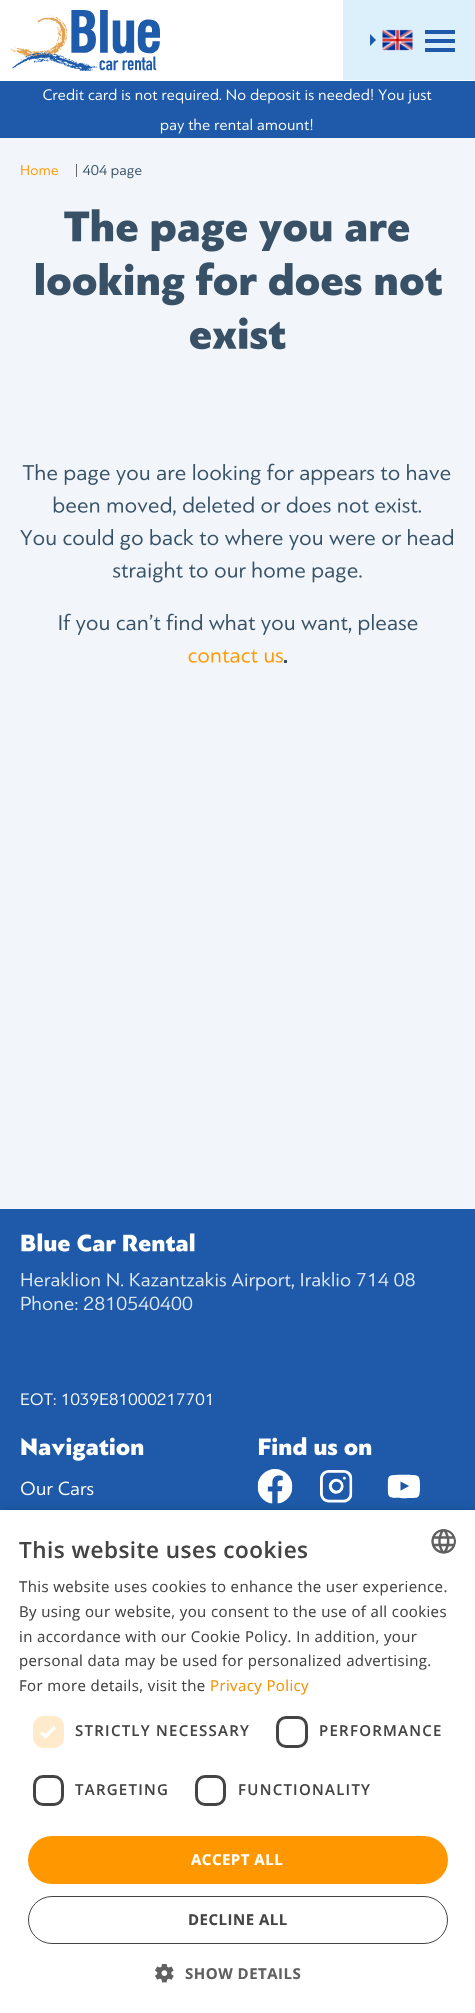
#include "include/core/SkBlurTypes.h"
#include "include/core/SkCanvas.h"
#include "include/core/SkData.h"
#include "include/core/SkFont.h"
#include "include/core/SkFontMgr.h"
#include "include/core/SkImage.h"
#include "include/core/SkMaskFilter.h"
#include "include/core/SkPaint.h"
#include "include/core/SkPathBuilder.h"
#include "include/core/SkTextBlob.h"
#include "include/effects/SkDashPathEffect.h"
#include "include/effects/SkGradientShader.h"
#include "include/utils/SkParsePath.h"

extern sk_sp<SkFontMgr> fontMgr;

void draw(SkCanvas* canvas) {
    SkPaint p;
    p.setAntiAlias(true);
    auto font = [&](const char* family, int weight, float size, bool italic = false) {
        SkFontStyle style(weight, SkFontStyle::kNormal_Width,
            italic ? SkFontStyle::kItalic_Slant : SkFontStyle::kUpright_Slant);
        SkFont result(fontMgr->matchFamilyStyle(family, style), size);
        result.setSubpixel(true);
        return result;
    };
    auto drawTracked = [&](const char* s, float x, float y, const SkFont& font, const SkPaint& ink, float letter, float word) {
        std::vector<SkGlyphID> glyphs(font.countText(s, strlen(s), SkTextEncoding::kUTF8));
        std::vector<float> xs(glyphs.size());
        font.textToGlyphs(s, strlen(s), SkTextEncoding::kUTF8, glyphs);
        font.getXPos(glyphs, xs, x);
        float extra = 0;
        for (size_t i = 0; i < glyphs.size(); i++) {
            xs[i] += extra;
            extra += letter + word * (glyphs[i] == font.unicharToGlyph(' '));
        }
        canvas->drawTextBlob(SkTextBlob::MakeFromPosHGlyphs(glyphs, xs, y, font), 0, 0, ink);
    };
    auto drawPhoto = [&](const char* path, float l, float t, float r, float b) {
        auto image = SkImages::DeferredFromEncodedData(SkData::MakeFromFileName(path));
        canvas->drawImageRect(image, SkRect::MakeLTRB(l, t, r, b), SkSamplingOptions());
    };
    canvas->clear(0xFFF2F6FB);
    p.setColor(0xFFFFFFFF);
    canvas->drawRect(SkRect::MakeLTRB(0, 0, 475, 81), p);
    drawPhoto("media/1.png", 10, 10, 160, 71);
    p.setColor(0xFFDCF0FC);
    canvas->drawRect(SkRect::MakeLTRB(343, 0, 475, 80), p);
    drawPhoto("media/2.png", 382, 29, 413, 51);
    p.setColor(0xFF1E5AA9);
    canvas->drawPath(SkPathBuilder().moveTo(370, 46).lineTo(370, 34).lineTo(376, 40).close().detach(), p);
    {
        const struct { float l, t, r, b; SkColor color; } items[] = {
            {425, 30, 455, 34, 0xFF1E5AA9},
            {425, 39, 455, 43, 0xFF1E5AA9},
            {425, 48, 455, 52, 0xFF1E5AA9},
            {0, 81, 475, 138, 0xFF1E5AA9},
        };
        for (auto [l, t, r, b, color] : items) {
            p.setColor(color);
            canvas->drawRect(SkRect::MakeLTRB(l, t, r, b), p);
        }
    }
    drawPhoto("media/3.png", 43, 88, 432, 104);
    drawPhoto("media/4.png", 160, 118, 313, 134);
    drawPhoto("media/5.png", 21, 165, 58, 176);
    p.setColor(0xFF666666);
    canvas->drawRect(SkRect::MakeLTRB(76, 164, 77, 177), p);
    drawPhoto("media/6.png", 82, 164, 142, 179);
    drawPhoto("media/7.png", 64, 209, 410, 252);
    drawPhoto("media/8.png", 35, 262, 442, 306);
    drawPhoto("media/9.png", 190, 317, 286, 350);
    drawPhoto("media/10.png", 22, 463, 451, 485);
    drawPhoto("media/11.png", 53, 496, 421, 516);
    drawPhoto("media/12.png", 20, 529, 453, 550);
    drawPhoto("media/13.png", 113, 561, 362, 583);
    drawPhoto("media/14.png", 59, 613, 418, 635);
    drawPhoto("media/15.png", 188, 649, 283, 663);
    p.setColor(0xFF385166);
    canvas->drawRect(SkRect::MakeLTRB(284, 660, 287, 663), p);
    p.setColor(0xFF1E5AA9);
    canvas->drawRect(SkRect::MakeLTRB(0, 1209, 475, 1510), p);
    drawPhoto("media/16.png", 21, 1233, 195, 1252);
    drawPhoto("media/17.png", 21, 1272, 415, 1291);
    drawPhoto("media/18.png", 21, 1295, 193, 1311);
    drawPhoto("media/19.png", 21, 1393, 211, 1406);
    drawPhoto("media/20.png", 21, 1437, 144, 1461);
    drawPhoto("media/21.png", 21, 1481, 94, 1496);
    drawPhoto("media/22.png", 258, 1437, 372, 1456);
    drawPhoto("media/23.png", 257, 1469, 293, 1504);
    drawPhoto("media/24.png", 320, 1470, 353, 1503);
    drawPhoto("media/25.png", 387, 1474, 420, 1499);
    p.setColor(0x59000000);
    p.setMaskFilter(SkMaskFilter::MakeBlur(kNormal_SkBlurStyle, 5));
    canvas->drawRect(SkRect::MakeLTRB(1, 1513, 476, 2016), p);
    p.setMaskFilter(nullptr);
    p.setColor(0xFFFFFFFF);
    canvas->drawRect(SkRect::MakeLTRB(0, 1510, 475, 2013), p);
    auto font1 = font("Open Sans", 600, 22.5f);
    p.setColor(0xFF444444);
    drawTracked("This website uses cookies", 19, 1558, font1, p, 0.5f, 0);
    drawPhoto("media/26.png", 431, 1529, 456, 1554);
    auto font2 = font("Open Sans", 400, 15);
    {
        const struct { const char* s; float x, y; } items[] = {
            {"This website uses cookies to enhance the user experience.", 19, 1592},
            {"By using our website, you consent to the use of all cookies", 19, 1617},
            {"in accordance with our Cookie Policy. In addition, your", 19, 1642},
            {"personal data may be used for personalized advertising.", 19, 1666},
            {"For more details, visit the", 19, 1691},
        };
        for (auto [s, x, y] : items) {
            drawTracked(s, x, y, font2, p, 0.38f, 0);
        }
    }
    p.setColor(0xFFF59200);
    drawTracked("Privacy Policy", 210, 1691, font2, p, 0.38f, 0);
    p.setColor(0xFFFFEACC);
    canvas->drawRoundRect(SkRect::MakeLTRB(33, 1716, 64, 1748), 10, 10, p);
    p.setStyle(SkPaint::kStroke_Style);
    p.setStrokeWidth(3.3f);
    p.setColor(0xFFFFFFFF);
    canvas->drawPath(SkPathBuilder().moveTo(41, 1732.5f).lineTo(45.5f, 1736.5f).lineTo(55, 1727).detach(), p);
    auto font3 = font("Open Sans", 600, 15);
    p.setStyle(SkPaint::kFill_Style);
    p.setColor(0xFF444444);
    drawTracked("STRICTLY NECESSARY", 75, 1736, font3, p, 1.25f, 0);
    p.setStyle(SkPaint::kStroke_Style);
    p.setStrokeWidth(3);
    canvas->drawRoundRect(SkRect::MakeLTRB(277.5f, 1717.5f, 306.5f, 1746.5f), 8.5f, 8.5f, p);
    p.setStyle(SkPaint::kFill_Style);
    drawTracked("PERFORMANCE", 319, 1736, font3, p, 1.25f, 0);
    p.setStyle(SkPaint::kStroke_Style);
    canvas->drawRoundRect(SkRect::MakeLTRB(34.5f, 1776.5f, 62.5f, 1804.5f), 8.5f, 8.5f, p);
    p.setStyle(SkPaint::kFill_Style);
    drawTracked("TARGETING", 75, 1795, font3, p, 1.25f, 0);
    p.setStyle(SkPaint::kStroke_Style);
    canvas->drawRoundRect(SkRect::MakeLTRB(196.5f, 1776.5f, 224.5f, 1804.5f), 8.5f, 8.5f, p);
    p.setStyle(SkPaint::kFill_Style);
    drawTracked("FUNCTIONALITY", 238, 1795, font3, p, 1.25f, 0);
    p.setColor(0xFFFF9800);
    canvas->drawRoundRect(SkRect::MakeLTRB(28, 1836, 448, 1884), 24, 24, p);
    auto font4 = font("Open Sans", 700, 15);
    p.setColor(0xFFFFFFFF);
    drawTracked("ACCEPT ALL", 191, 1865, font4, p, 0.5f, 0);
    p.setStyle(SkPaint::kStroke_Style);
    p.setStrokeWidth(1);
    p.setColor(0xFF444444);
    canvas->drawRoundRect(SkRect::MakeLTRB(28.5f, 1896.5f, 447.5f, 1943.5f), 23.5f, 23.5f, p);
    p.setStyle(SkPaint::kFill_Style);
    drawTracked("DECLINE ALL", 188, 1925, font4, p, 0.5f, 0);
    drawPhoto("media/27.png", 155, 1964, 174, 1983);
    p.setColor(0xFF606060);
    drawTracked("SHOW DETAILS", 185, 1979, font4, p, 0.5f, 0);
}
